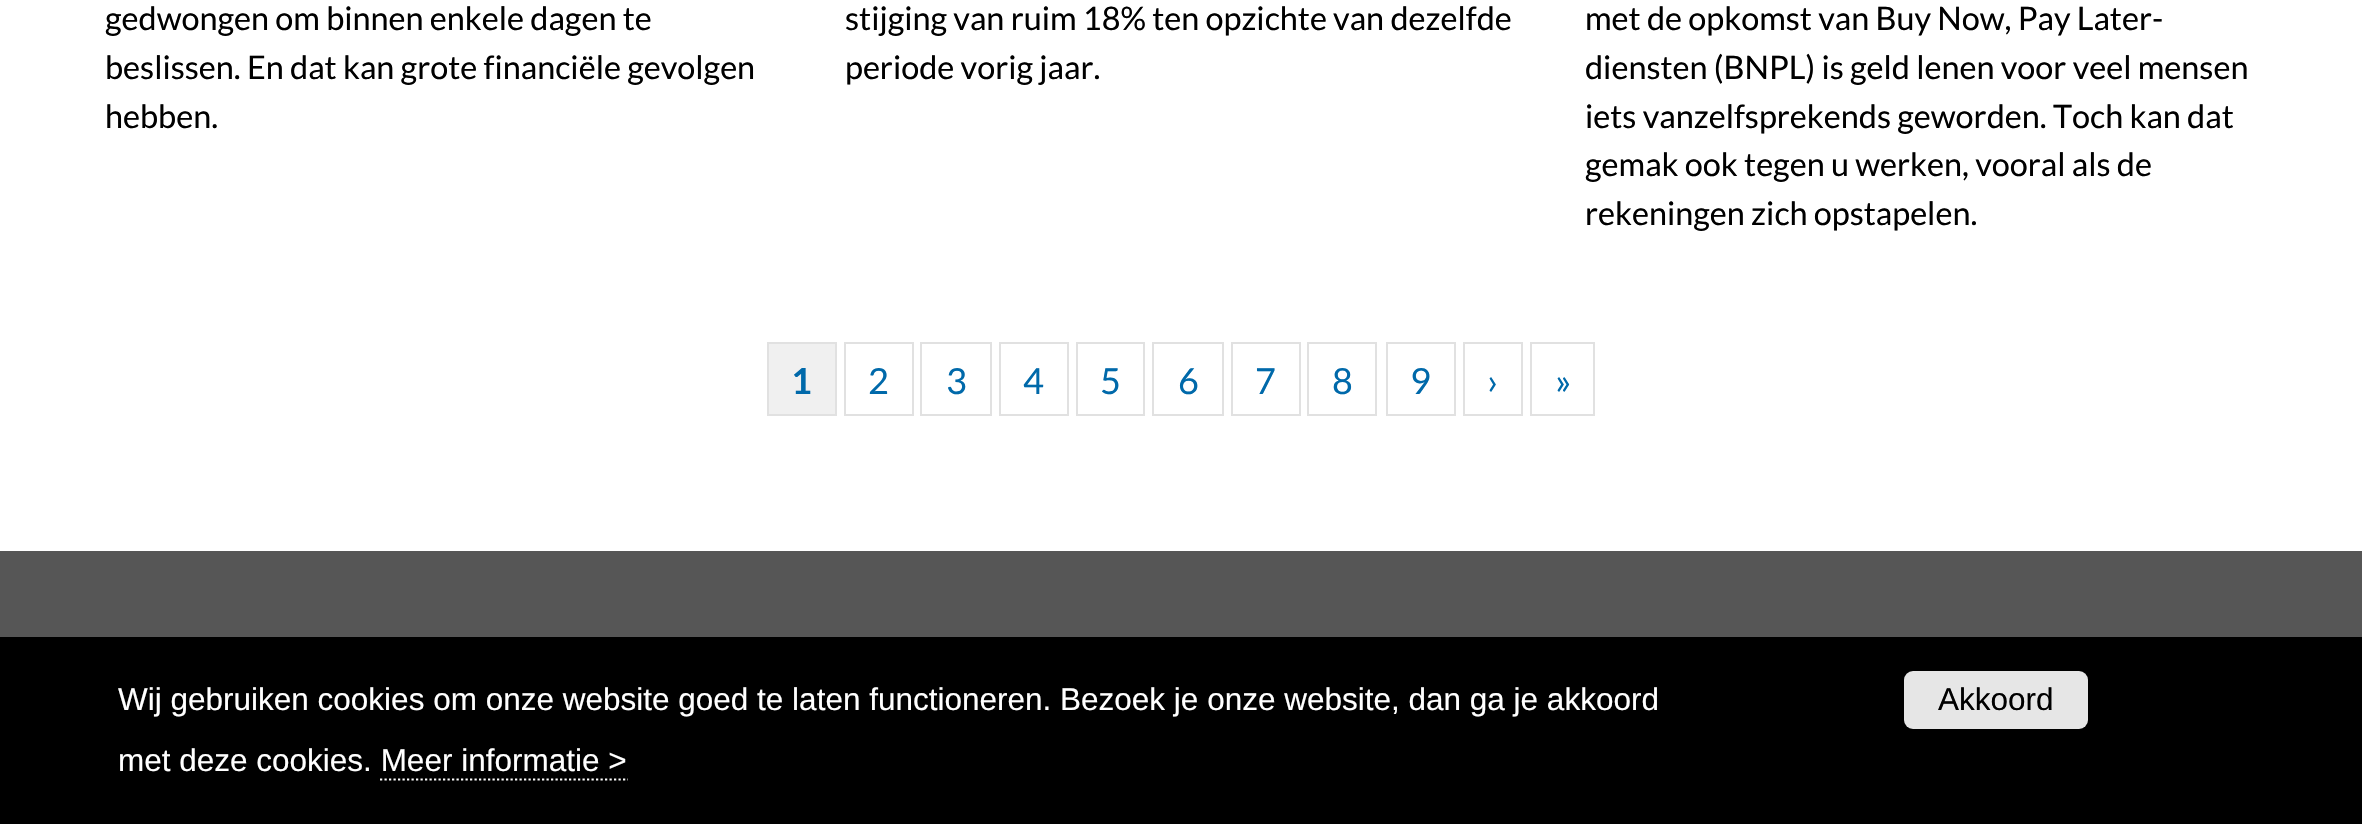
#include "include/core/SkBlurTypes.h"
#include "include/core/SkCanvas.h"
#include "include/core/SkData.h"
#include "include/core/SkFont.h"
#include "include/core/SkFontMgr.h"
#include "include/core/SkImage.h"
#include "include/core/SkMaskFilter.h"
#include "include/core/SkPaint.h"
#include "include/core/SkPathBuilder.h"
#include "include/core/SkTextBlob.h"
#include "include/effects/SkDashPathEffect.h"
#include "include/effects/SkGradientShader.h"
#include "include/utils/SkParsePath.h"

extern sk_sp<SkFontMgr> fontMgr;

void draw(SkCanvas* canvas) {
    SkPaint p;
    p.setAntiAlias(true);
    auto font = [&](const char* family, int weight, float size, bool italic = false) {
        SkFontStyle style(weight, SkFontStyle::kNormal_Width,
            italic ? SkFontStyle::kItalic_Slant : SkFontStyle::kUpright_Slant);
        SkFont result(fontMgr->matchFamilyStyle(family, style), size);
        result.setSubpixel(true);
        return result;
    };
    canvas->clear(0xFFFFFFFF);
    auto font1 = font("Lato", 400, 32.4f);
    p.setColor(0xFF000000);
    {
        const struct { const char* s; float x, y; } items[] = {
            {"gedwongen om binnen enkele dagen te", 105, 30},
            {"beslissen. En dat kan grote financiële gevolgen", 105, 79},
            {"hebben.", 105, 128},
            {"stijging van ruim 18% ten opzichte van dezelfde", 845, 30},
            {"periode vorig jaar.", 845, 79},
            {"met de opkomst van Buy Now, Pay Later-", 1585, 30},
            {"diensten (BNPL) is geld lenen voor veel mensen", 1585, 79},
            {"iets vanzelfsprekends geworden. Toch kan dat", 1585, 128},
            {"gemak ook tegen u werken, vooral als de", 1585, 176},
            {"rekeningen zich opstapelen.", 1585, 225},
        };
        for (auto [s, x, y] : items) {
            canvas->drawString(s, x, y, font1, p);
        }
    }
    p.setColor(0xFFF0F0F0);
    canvas->drawRect(SkRect::MakeLTRB(768, 343, 836, 415), p);
    p.setStyle(SkPaint::kStroke_Style);
    p.setStrokeWidth(2);
    p.setColor(0xFFE1E1E1);
    canvas->drawRect(SkRect::MakeLTRB(768, 343, 836, 415), p);
    auto font2 = font("Lato", 700, 36);
    p.setStyle(SkPaint::kFill_Style);
    p.setColor(0xFF0069AA);
    canvas->drawString("1", 791, 394, font2, p);
    p.setStyle(SkPaint::kStroke_Style);
    p.setColor(0xFFE1E1E1);
    canvas->drawRect(SkRect::MakeLTRB(845, 343, 913, 415), p);
    auto font3 = font("Lato", 400, 36);
    p.setStyle(SkPaint::kFill_Style);
    p.setColor(0xFF0069AA);
    canvas->drawString("2", 868, 394, font3, p);
    p.setStyle(SkPaint::kStroke_Style);
    p.setColor(0xFFE1E1E1);
    canvas->drawRect(SkRect::MakeLTRB(921, 343, 991, 415), p);
    p.setStyle(SkPaint::kFill_Style);
    p.setColor(0xFF0069AA);
    canvas->drawString("3", 946, 394, font3, p);
    p.setStyle(SkPaint::kStroke_Style);
    p.setColor(0xFFE1E1E1);
    canvas->drawRect(SkRect::MakeLTRB(1000, 343, 1068, 415), p);
    p.setStyle(SkPaint::kFill_Style);
    p.setColor(0xFF0069AA);
    canvas->drawString("4", 1023, 394, font3, p);
    p.setStyle(SkPaint::kStroke_Style);
    p.setColor(0xFFE1E1E1);
    canvas->drawRect(SkRect::MakeLTRB(1077, 343, 1144, 415), p);
    p.setStyle(SkPaint::kFill_Style);
    p.setColor(0xFF0069AA);
    canvas->drawString("5", 1100, 394, font3, p);
    p.setStyle(SkPaint::kStroke_Style);
    p.setColor(0xFFE1E1E1);
    canvas->drawRect(SkRect::MakeLTRB(1153, 343, 1223, 415), p);
    p.setStyle(SkPaint::kFill_Style);
    p.setColor(0xFF0069AA);
    canvas->drawString("6", 1178, 394, font3, p);
    p.setStyle(SkPaint::kStroke_Style);
    p.setColor(0xFFE1E1E1);
    canvas->drawRect(SkRect::MakeLTRB(1232, 343, 1300, 415), p);
    p.setStyle(SkPaint::kFill_Style);
    p.setColor(0xFF0069AA);
    canvas->drawString("7", 1255, 394, font3, p);
    p.setStyle(SkPaint::kStroke_Style);
    p.setColor(0xFFE1E1E1);
    canvas->drawRect(SkRect::MakeLTRB(1308, 343, 1376, 415), p);
    p.setStyle(SkPaint::kFill_Style);
    p.setColor(0xFF0069AA);
    canvas->drawString("8", 1332, 394, font3, p);
    p.setStyle(SkPaint::kStroke_Style);
    p.setColor(0xFFE1E1E1);
    canvas->drawRect(SkRect::MakeLTRB(1387, 343, 1455, 415), p);
    p.setStyle(SkPaint::kFill_Style);
    p.setColor(0xFF0069AA);
    canvas->drawString("9", 1410, 394, font3, p);
    p.setStyle(SkPaint::kStroke_Style);
    p.setColor(0xFFE1E1E1);
    canvas->drawRect(SkRect::MakeLTRB(1464, 343, 1522, 415), p);
    p.setStyle(SkPaint::kFill_Style);
    p.setColor(0xFF0069AA);
    canvas->drawString("›", 1487, 394, font3, p);
    p.setStyle(SkPaint::kStroke_Style);
    p.setColor(0xFFE1E1E1);
    canvas->drawRect(SkRect::MakeLTRB(1531, 343, 1594, 415), p);
    p.setStyle(SkPaint::kFill_Style);
    p.setColor(0xFF0069AA);
    canvas->drawString("»", 1555, 394, font3, p);
    p.setColor(0xFF565656);
    canvas->drawRect(SkRect::MakeLTRB(0, 551, 2362, 637), p);
    p.setColor(0xFF000000);
    canvas->drawRect(SkRect::MakeLTRB(0, 637, 2362, 824), p);
    auto font4 = font("Liberation Sans", 400, 31.5f);
    p.setColor(0xFFFFFFFF);
    canvas->drawString("Wij gebruiken cookies om onze website goed te laten functioneren. Bezoek je onze website, dan ga je akkoord", 118, 710, font4, p);
    canvas->drawString("met deze cookies. Meer informatie >", 118, 771, font4, p);
    p.setStyle(SkPaint::kStroke_Style);
    p.setStrokeWidth(2.2f);
    p.setPathEffect(SkDashPathEffect::Make({{2.25f, 2.25f}}, 0));
    canvas->drawPath(SkPathBuilder().moveTo(380, 779.5f).lineTo(628, 779.5f).detach(), p);
    p.setPathEffect(nullptr);
    p.setStyle(SkPaint::kFill_Style);
    p.setColor(0xFFE6E6E6);
    canvas->drawRoundRect(SkRect::MakeLTRB(1904, 671, 2088, 729), 9, 9, p);
    p.setColor(0xFF000000);
    canvas->drawString("Akkoord", 1938, 710, font4, p);
}
